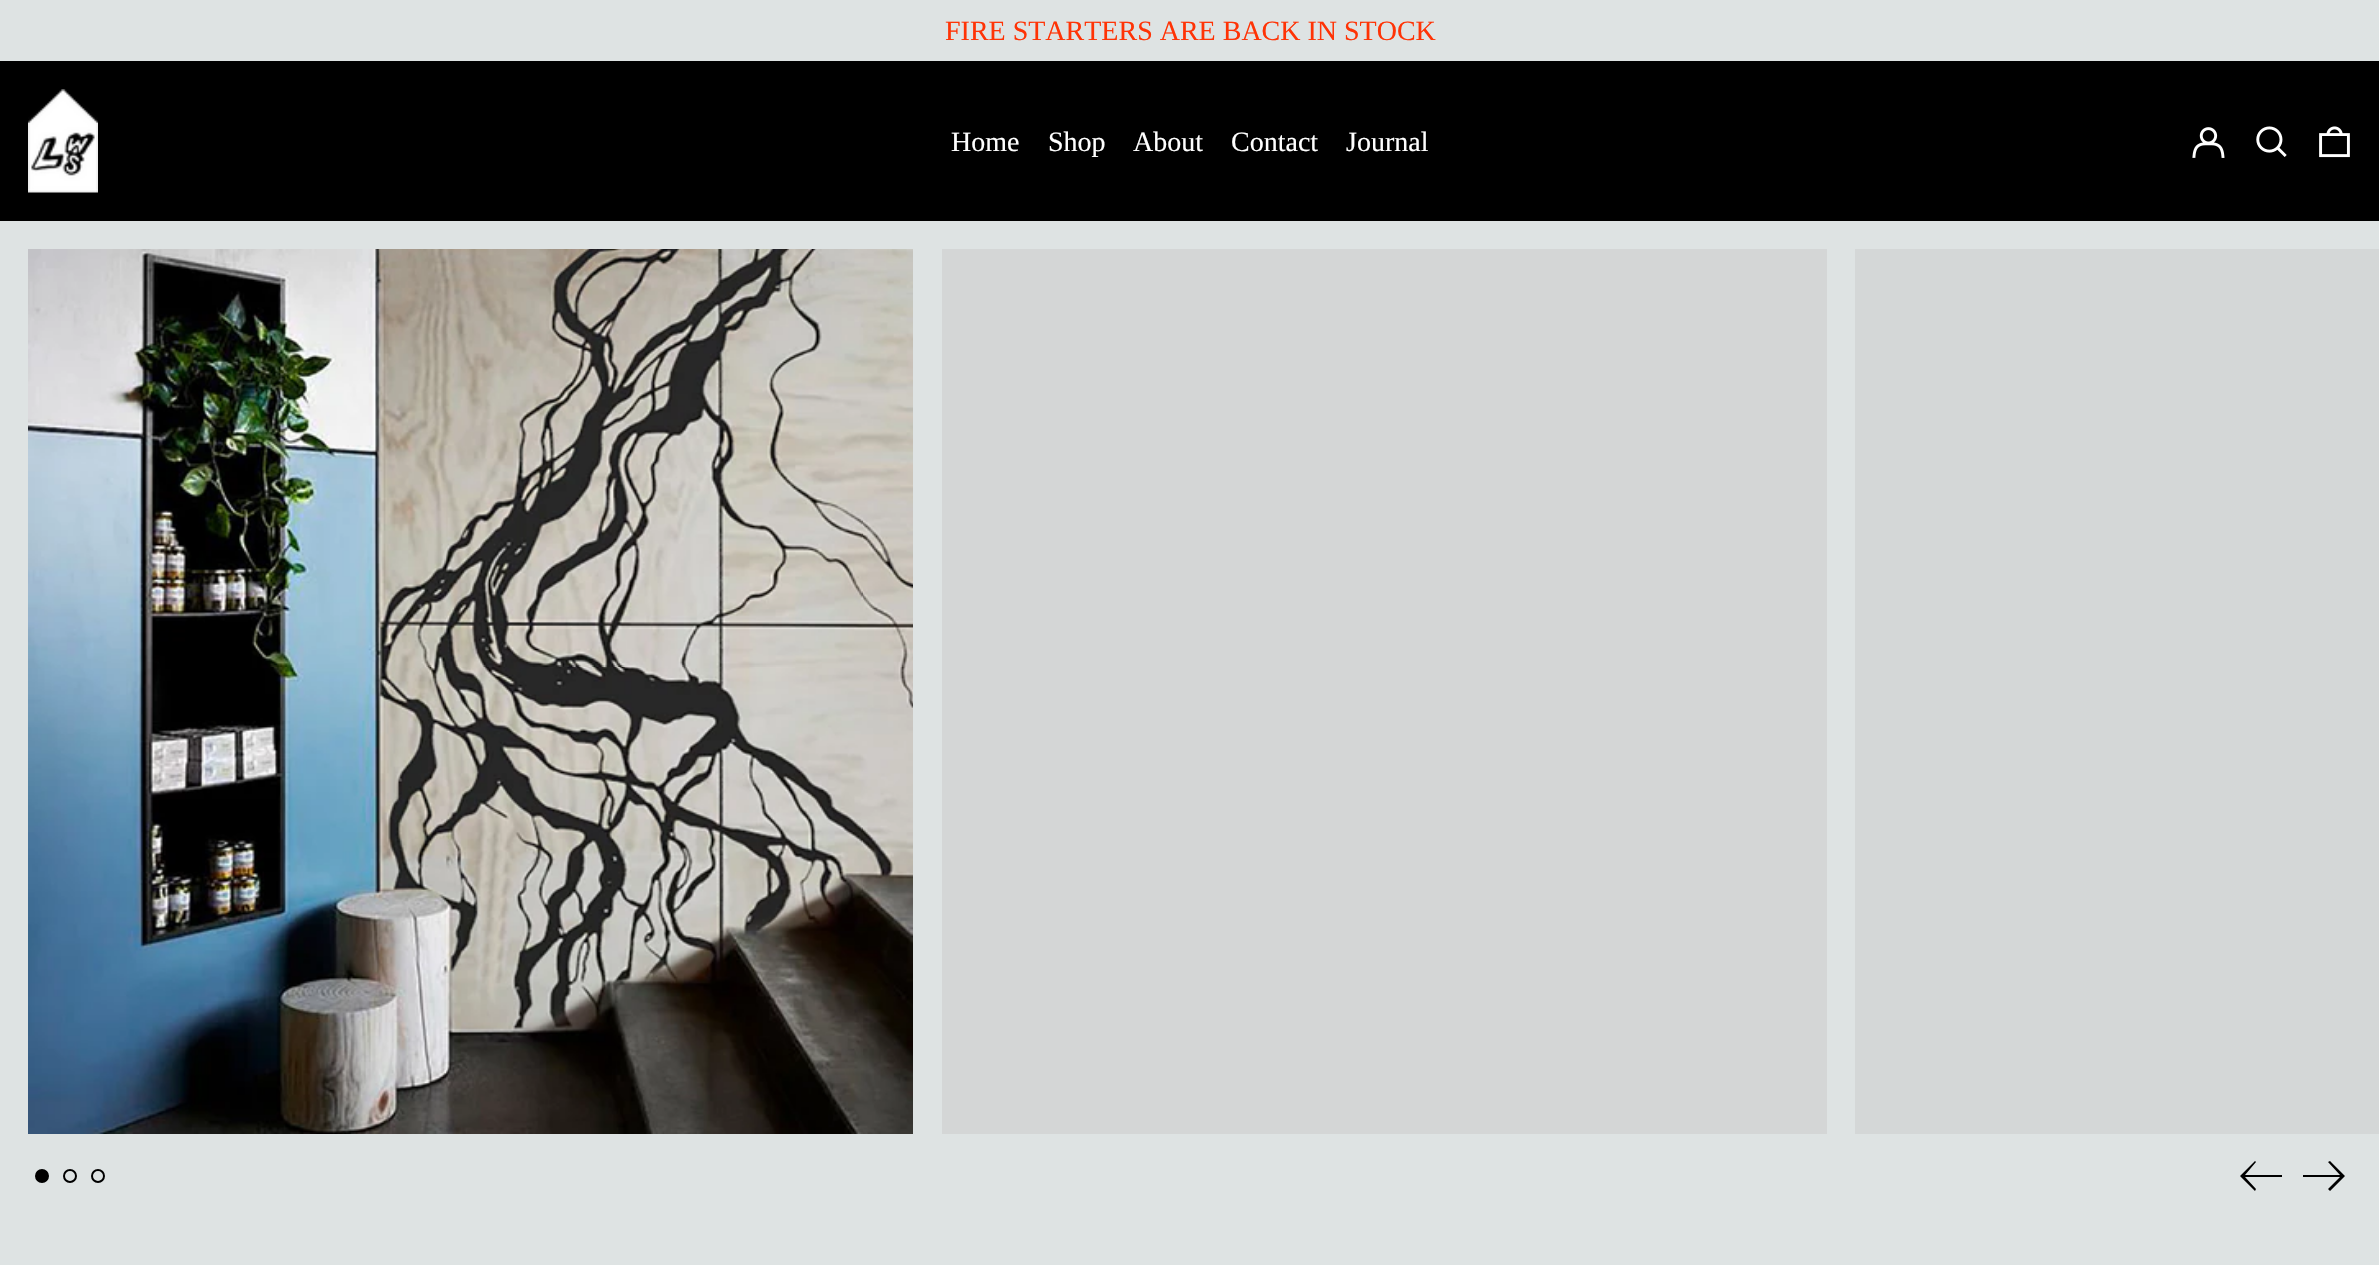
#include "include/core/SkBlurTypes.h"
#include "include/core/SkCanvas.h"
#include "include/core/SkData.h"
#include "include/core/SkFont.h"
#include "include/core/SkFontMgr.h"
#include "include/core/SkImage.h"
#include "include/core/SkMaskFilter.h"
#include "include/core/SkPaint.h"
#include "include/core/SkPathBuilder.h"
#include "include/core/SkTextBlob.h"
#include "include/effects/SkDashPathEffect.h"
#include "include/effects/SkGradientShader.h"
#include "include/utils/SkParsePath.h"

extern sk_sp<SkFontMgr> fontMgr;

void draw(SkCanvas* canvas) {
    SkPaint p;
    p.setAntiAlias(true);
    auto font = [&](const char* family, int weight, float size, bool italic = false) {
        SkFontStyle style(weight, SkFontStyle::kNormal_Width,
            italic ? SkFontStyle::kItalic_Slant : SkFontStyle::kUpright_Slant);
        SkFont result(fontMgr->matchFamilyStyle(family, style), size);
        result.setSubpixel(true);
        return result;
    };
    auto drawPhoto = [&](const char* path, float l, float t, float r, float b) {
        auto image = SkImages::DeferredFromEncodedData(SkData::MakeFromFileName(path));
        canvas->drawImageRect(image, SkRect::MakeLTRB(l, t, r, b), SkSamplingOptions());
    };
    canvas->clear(0xFFDEE3E3);
    auto font1 = font("Liberation Serif", 400, 28);
    p.setColor(0xFFFF3305);
    canvas->drawString("FIRE STARTERS ARE BACK IN STOCK", 945, 40, font1, p);
    p.setColor(0xFF000000);
    canvas->drawRect(SkRect::MakeLTRB(0, 61, 2379, 221), p);
    drawPhoto("media/1.png", 28, 89, 98, 193);
    p.setColor(0xFFFFFFFF);
    {
        const struct { const char* s; float x, y; } items[] = {
            {"Home", 951, 151},
            {"Shop", 1048, 151},
            {"About", 1133, 151},
            {"Contact", 1231, 151},
            {"Journal", 1346, 151},
        };
        for (auto [s, x, y] : items) {
            canvas->drawString(s, x, y, font1, p);
        }
    }
    drawPhoto("media/2.png", 2192, 127, 2225, 158);
    drawPhoto("media/3.png", 2256, 126, 2287, 157);
    drawPhoto("media/4.png", 2319, 126, 2350, 158);
    drawPhoto("media/5.png", 28, 249, 913, 1134);
    p.setColor(0xFFD4D6D6);
    canvas->drawRect(SkRect::MakeLTRB(942, 249, 1827, 1134), p);
    p.setColor(0xFFD4D7D7);
    canvas->drawRect(SkRect::MakeLTRB(1855, 249, 2379, 1134), p);
    p.setColor(0xFF000000);
    canvas->drawCircle(42, 1176, 6, p);
    p.setStyle(SkPaint::kStroke_Style);
    p.setStrokeWidth(2);
    canvas->drawCircle(42, 1176, 6, p);
    canvas->drawCircle(70, 1176, 6, p);
    canvas->drawCircle(98, 1176, 6, p);
    p.setStyle(SkPaint::kFill_Style);
    canvas->drawPath(SkPathBuilder().moveTo(2255, 1161).lineTo(2240, 1176).lineTo(2255, 1191).lineTo(2256, 1189).lineTo(2245, 1177).lineTo(2282, 1177).lineTo(2282, 1175).lineTo(2245, 1175).lineTo(2256, 1162).close().detach(), p);
    canvas->drawPath(SkPathBuilder().moveTo(2330, 1161).lineTo(2345, 1176).lineTo(2330, 1191).lineTo(2328, 1189).lineTo(2340, 1177).lineTo(2303, 1177).lineTo(2303, 1175).lineTo(2340, 1175).lineTo(2328, 1162).close().detach(), p);
}
